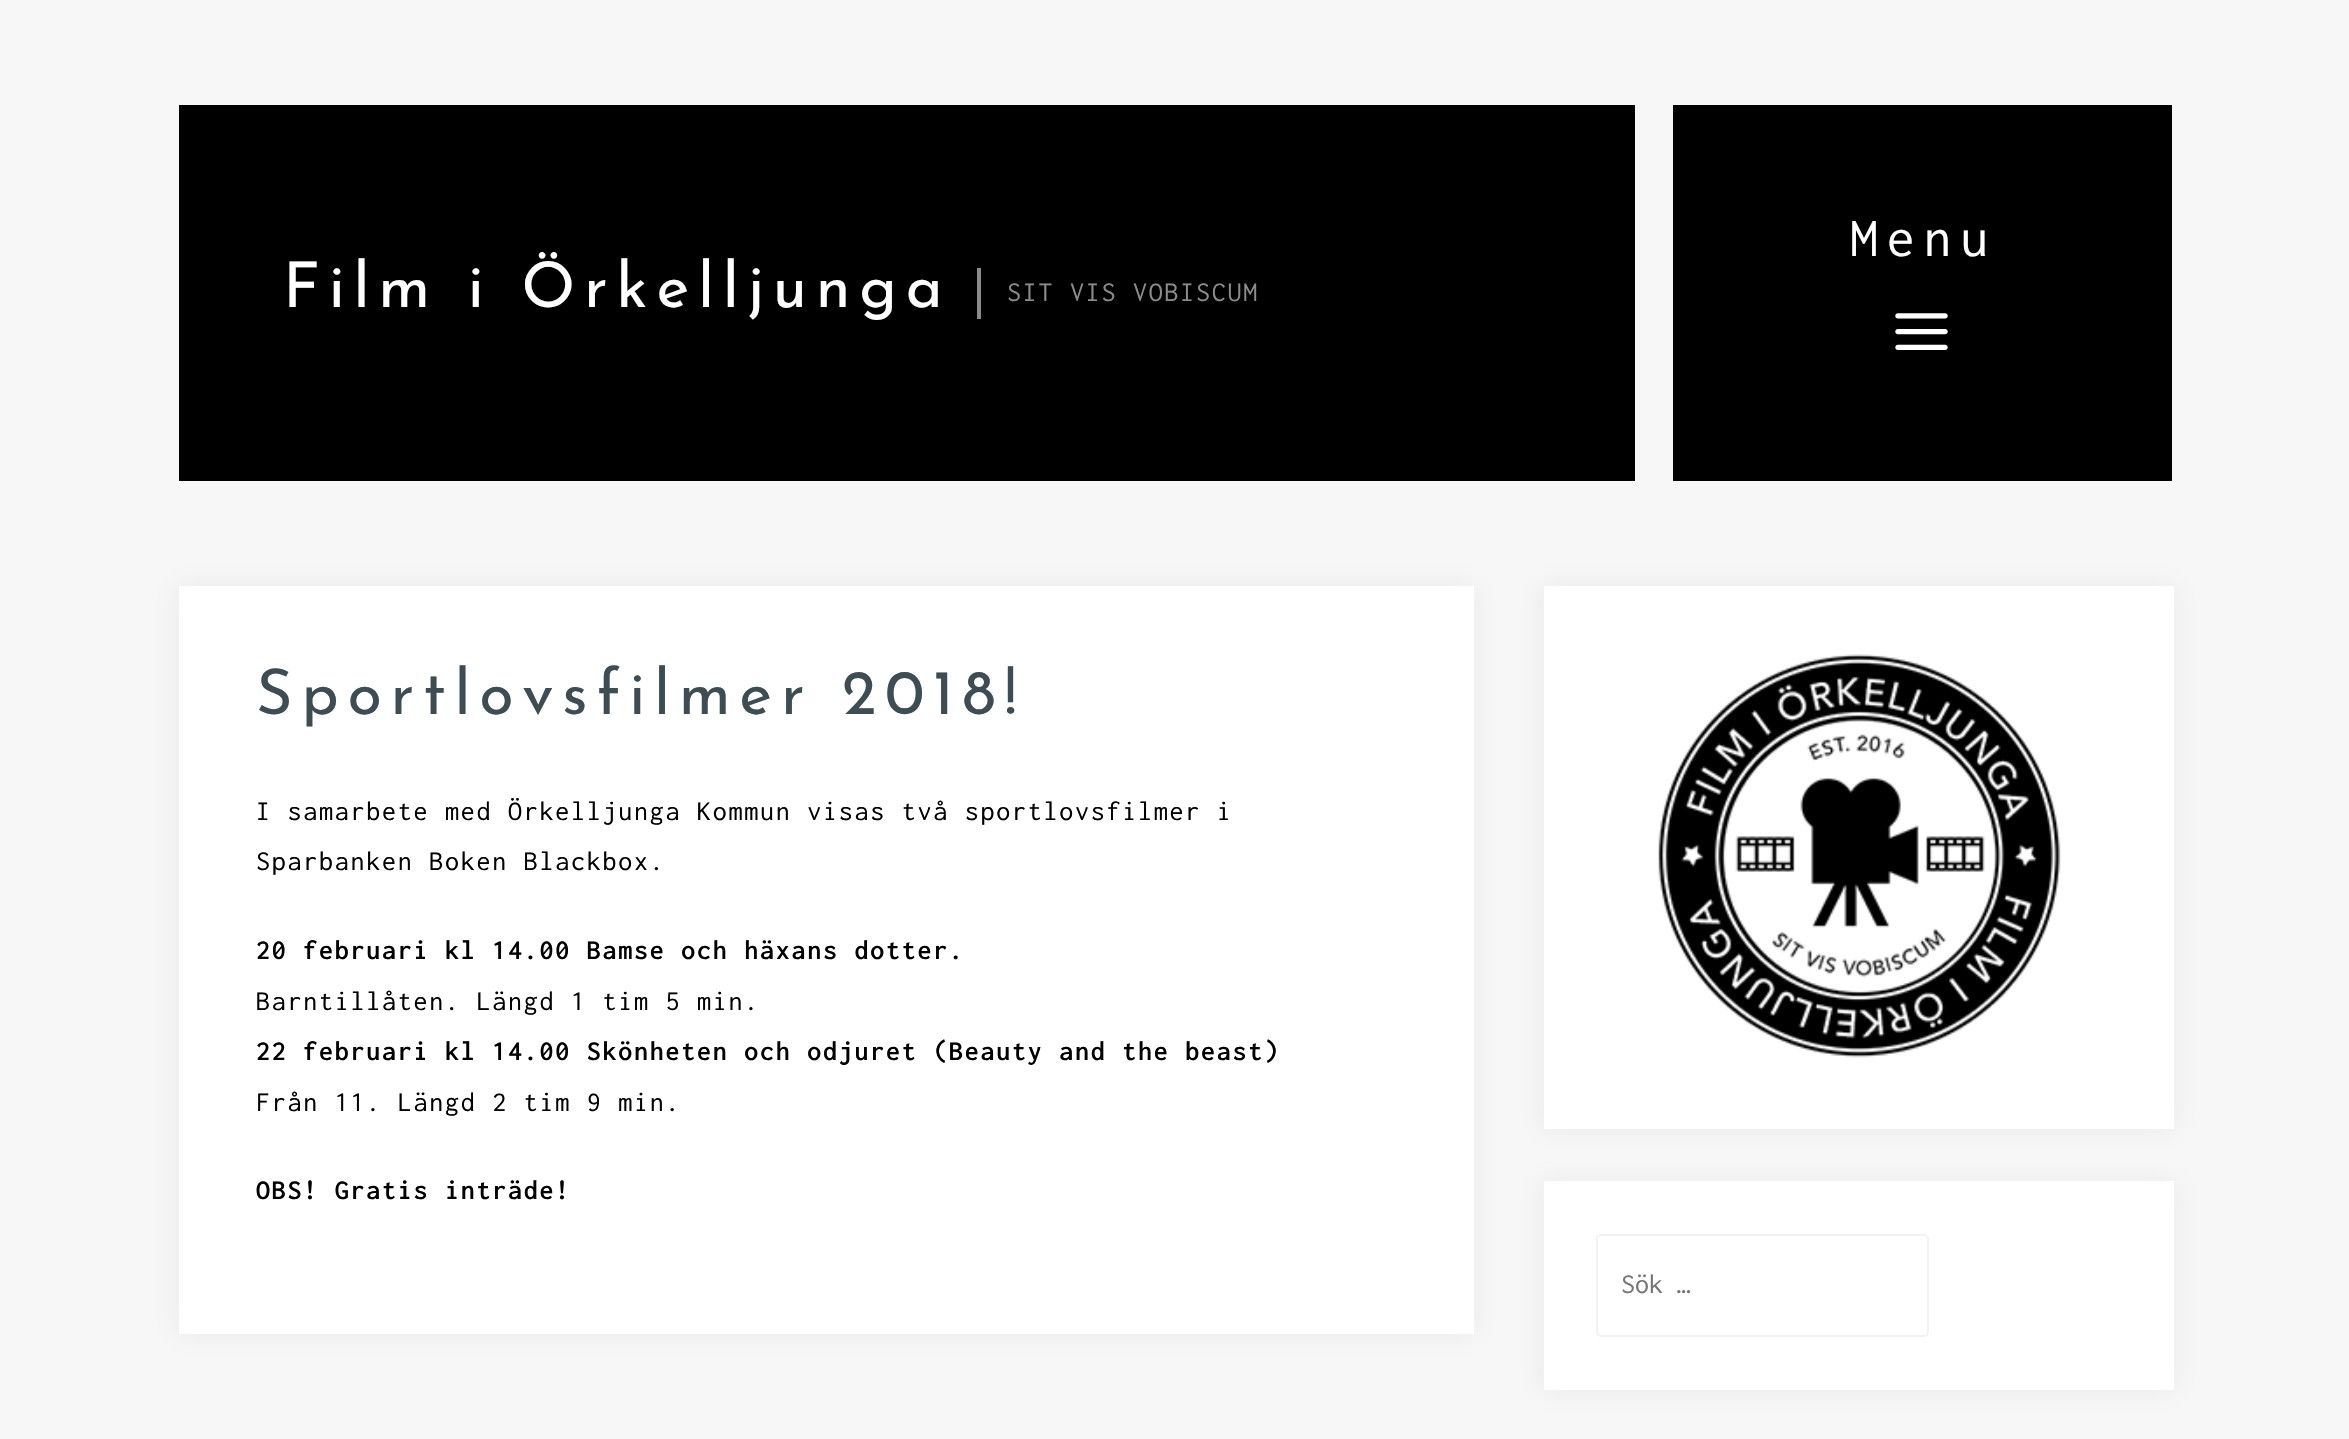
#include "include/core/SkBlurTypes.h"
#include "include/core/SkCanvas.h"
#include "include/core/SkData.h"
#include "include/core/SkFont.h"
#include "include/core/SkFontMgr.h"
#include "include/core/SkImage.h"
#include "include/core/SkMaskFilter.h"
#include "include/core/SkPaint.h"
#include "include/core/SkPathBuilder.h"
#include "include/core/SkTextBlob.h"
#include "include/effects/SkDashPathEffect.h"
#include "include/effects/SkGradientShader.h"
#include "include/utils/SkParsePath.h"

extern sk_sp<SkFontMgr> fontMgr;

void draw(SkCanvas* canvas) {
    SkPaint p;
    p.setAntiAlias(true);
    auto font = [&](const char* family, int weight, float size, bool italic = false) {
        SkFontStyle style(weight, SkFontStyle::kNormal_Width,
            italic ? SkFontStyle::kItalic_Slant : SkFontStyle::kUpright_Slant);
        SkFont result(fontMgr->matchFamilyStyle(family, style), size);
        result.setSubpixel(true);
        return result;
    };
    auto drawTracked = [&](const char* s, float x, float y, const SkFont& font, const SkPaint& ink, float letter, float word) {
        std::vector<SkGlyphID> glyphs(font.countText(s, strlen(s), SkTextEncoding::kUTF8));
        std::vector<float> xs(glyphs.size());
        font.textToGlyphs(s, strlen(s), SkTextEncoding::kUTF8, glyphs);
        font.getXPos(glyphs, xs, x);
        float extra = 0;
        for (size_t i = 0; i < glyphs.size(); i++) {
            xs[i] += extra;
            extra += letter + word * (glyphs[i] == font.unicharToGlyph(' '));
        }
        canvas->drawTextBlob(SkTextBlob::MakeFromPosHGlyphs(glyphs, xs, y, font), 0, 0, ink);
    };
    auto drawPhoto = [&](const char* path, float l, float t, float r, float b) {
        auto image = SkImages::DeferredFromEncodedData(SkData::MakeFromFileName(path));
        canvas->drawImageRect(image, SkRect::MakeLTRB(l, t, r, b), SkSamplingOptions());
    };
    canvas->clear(0xFFF7F7F7);
    p.setColor(0xFF000000);
    canvas->drawRect(SkRect::MakeLTRB(1673, 105, 2172, 481), p);
    auto font1 = font("Inconsolata", 400, 56);
    p.setColor(0xFFFFFFFF);
    drawTracked("Menu", 1850, 256, font1, p, 8.75f, 0);
    drawPhoto("media/1.png", 1895, 313, 1948, 350);
    p.setColor(0xFF000000);
    canvas->drawRect(SkRect::MakeLTRB(179, 105, 1635, 481), p);
    auto font2 = font("Josefin Sans", 400, 63);
    p.setColor(0xFFFFFFFF);
    drawTracked("Film i Örkelljunga", 283, 307, font2, p, 8.75f, 0);
    p.setColor(0xFF8C8A8A);
    canvas->drawRect(SkRect::MakeLTRB(977, 268, 981, 319), p);
    auto font3 = font("Inconsolata", 400, 28);
    drawTracked("SIT VIS VOBISCUM", 1007, 301, font3, p, 1.75f, 0);
    p.setColor(0x0D272B31);
    p.setMaskFilter(SkMaskFilter::MakeBlur(kNormal_SkBlurStyle, 13));
    canvas->drawRect(SkRect::MakeLTRB(175, 583, 1477, 1337), p);
    p.setMaskFilter(nullptr);
    p.setColor(0xFFFFFFFF);
    canvas->drawRect(SkRect::MakeLTRB(179, 586, 1474, 1334), p);
    p.setColor(0xFF3E4C53);
    drawTracked("Sportlovsfilmer 2018!", 256, 714, font2, p, 8.75f, 0);
    p.setColor(0xFF000000);
    drawTracked("I samarbete med Örkelljunga Kommun visas två sportlovsfilmer i", 256, 820, font3, p, 1.75f, 0);
    drawTracked("Sparbanken Boken Blackbox.", 256, 870, font3, p, 1.75f, 0);
    auto font4 = font("Inconsolata", 600, 28);
    drawTracked("20 februari kl 14.00 Bamse och häxans dotter.", 256, 959, font4, p, 1.75f, 0);
    drawTracked("Barntillåten. Längd 1 tim 5 min.", 256, 1010, font3, p, 1.75f, 0);
    drawTracked("22 februari kl 14.00 Skönheten och odjuret (Beauty and the beast)", 256, 1060, font4, p, 1.75f, 0);
    drawTracked("Från 11. Längd 2 tim 9 min.", 256, 1111, font3, p, 1.75f, 0);
    drawTracked("OBS! Gratis inträde!", 256, 1199, font4, p, 1.75f, 0);
    p.setColor(0x0D272B31);
    p.setMaskFilter(SkMaskFilter::MakeBlur(kNormal_SkBlurStyle, 13));
    canvas->drawRect(SkRect::MakeLTRB(1540, 583, 2177, 1132), p);
    p.setMaskFilter(nullptr);
    p.setColor(0xFFFFFFFF);
    canvas->drawRect(SkRect::MakeLTRB(1544, 586, 2174, 1129), p);
    drawPhoto("media/2.png", 1658, 654, 2061, 1058);
    p.setColor(0x0D272B31);
    p.setMaskFilter(SkMaskFilter::MakeBlur(kNormal_SkBlurStyle, 13));
    canvas->drawRect(SkRect::MakeLTRB(1540, 1178, 2177, 1393), p);
    p.setMaskFilter(nullptr);
    p.setColor(0xFFFFFFFF);
    canvas->drawRect(SkRect::MakeLTRB(1544, 1181, 2174, 1390), p);
    p.setStyle(SkPaint::kStroke_Style);
    p.setStrokeWidth(2);
    p.setColor(0xFFF3F2F2);
    canvas->drawRoundRect(SkRect::MakeLTRB(1597, 1235, 1928, 1336), 4, 4, p);
    p.setStyle(SkPaint::kFill_Style);
    p.setColor(0xFF757575);
    canvas->drawString("Sök …", 1621, 1293, font3, p);
}
